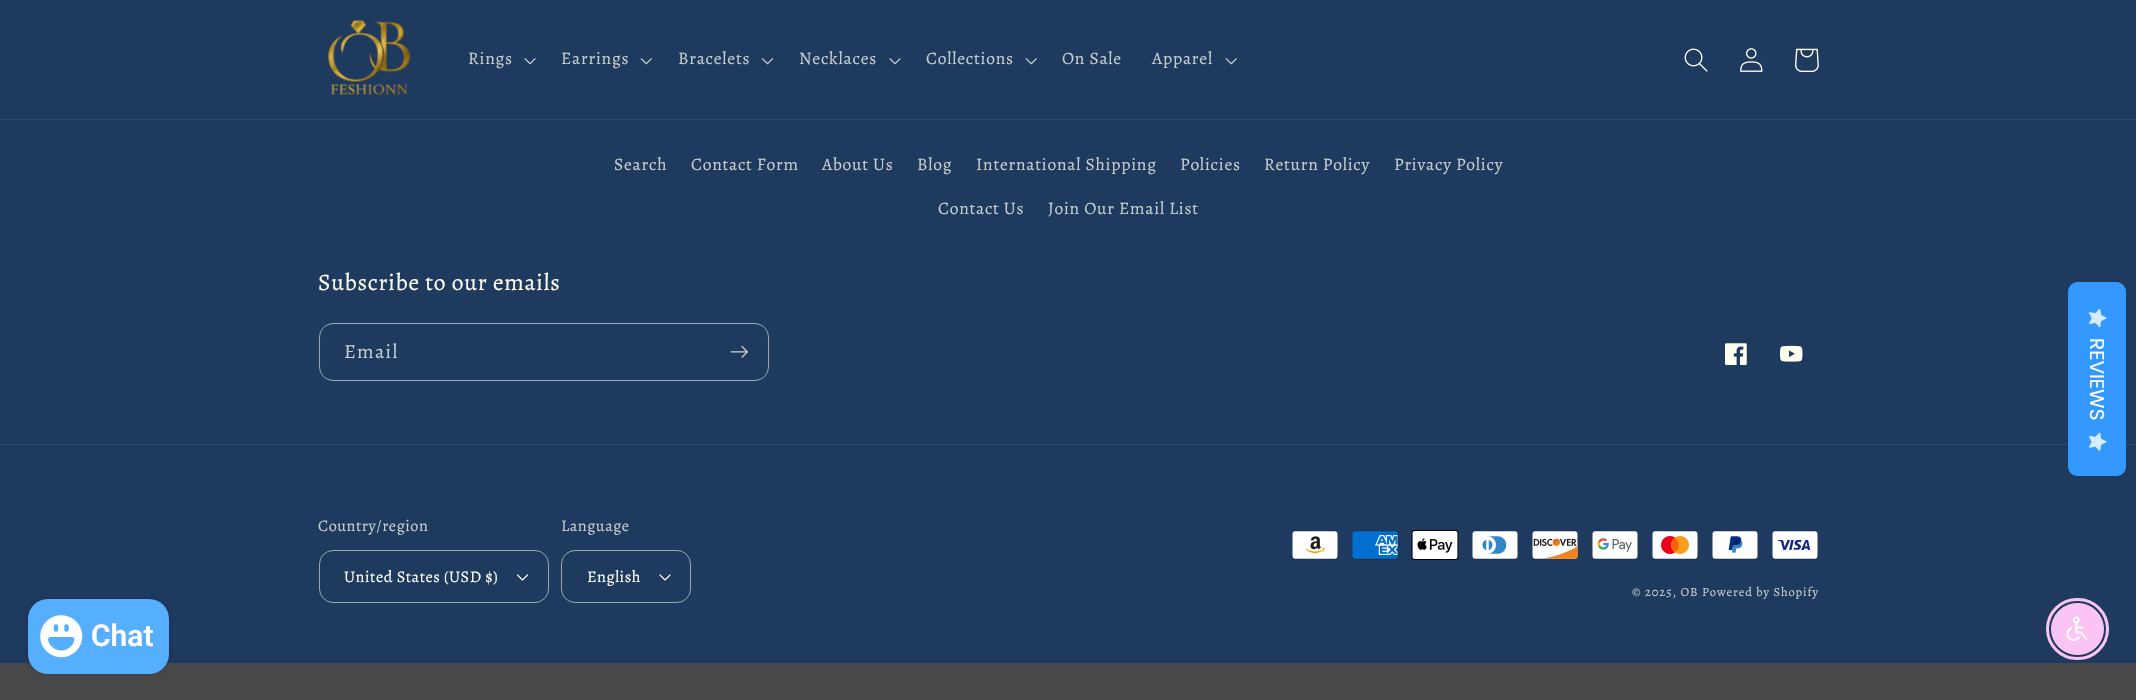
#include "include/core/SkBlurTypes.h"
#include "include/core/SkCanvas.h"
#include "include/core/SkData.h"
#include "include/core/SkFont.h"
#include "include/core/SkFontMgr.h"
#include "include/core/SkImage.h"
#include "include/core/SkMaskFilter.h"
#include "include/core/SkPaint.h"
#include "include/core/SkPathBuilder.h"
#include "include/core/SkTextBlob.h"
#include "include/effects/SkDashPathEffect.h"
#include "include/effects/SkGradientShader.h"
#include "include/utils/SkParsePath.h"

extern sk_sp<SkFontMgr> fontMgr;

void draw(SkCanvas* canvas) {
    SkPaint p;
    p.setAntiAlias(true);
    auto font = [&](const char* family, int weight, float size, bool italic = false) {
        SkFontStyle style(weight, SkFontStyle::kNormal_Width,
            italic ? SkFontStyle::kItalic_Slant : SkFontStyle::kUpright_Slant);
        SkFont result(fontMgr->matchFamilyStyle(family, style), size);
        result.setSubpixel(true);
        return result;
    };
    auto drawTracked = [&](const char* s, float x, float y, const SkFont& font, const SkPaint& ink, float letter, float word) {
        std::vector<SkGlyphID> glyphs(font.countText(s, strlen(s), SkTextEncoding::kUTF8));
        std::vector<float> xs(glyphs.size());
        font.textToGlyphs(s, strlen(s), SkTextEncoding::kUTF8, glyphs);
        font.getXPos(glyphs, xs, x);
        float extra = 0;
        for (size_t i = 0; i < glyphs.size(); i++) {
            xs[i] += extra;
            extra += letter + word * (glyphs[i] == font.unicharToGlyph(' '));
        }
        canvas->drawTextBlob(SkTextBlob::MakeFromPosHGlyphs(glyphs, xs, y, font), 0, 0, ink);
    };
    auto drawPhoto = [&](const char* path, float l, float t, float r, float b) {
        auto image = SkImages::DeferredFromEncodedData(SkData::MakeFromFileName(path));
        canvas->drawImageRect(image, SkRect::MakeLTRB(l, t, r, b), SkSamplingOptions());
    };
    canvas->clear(0xFFFFFFFF);
    {
        const SkColor colors[] = {0xFF1E3A5F, 0xFFE8F8FE};
        const float stops[] = {1, 1};
        SkMatrix m = SkMatrix::Translate(1068, 350).preScale(1511, 495);
        p.setShader(SkGradientShader::MakeRadial({0, 0}, 1, colors, stops, 2, SkTileMode::kClamp, 0, &m));
        p.setAlpha(255);
    }
    canvas->drawRect(SkRect::MakeLTRB(0, 0, 2136, 119), p);
    p.setShader(nullptr);
    p.setColor(0xFF304A6B);
    canvas->drawRect(SkRect::MakeLTRB(0, 119, 2136, 120), p);
    drawPhoto("media/1.png", 327, 19, 411, 95);
    auto font1 = font("Alegreya", 400, 17.5f);
    p.setColor(0xFFC7CECC);
    drawTracked("Rings", 468, 64, font1, p, 0.75f, 0);
    drawPhoto("media/2.png", 524, 58, 536, 65);
    drawTracked("Earrings", 561, 64, font1, p, 0.75f, 0);
    drawPhoto("media/3.png", 640, 58, 652, 65);
    drawTracked("Bracelets", 678, 64, font1, p, 0.75f, 0);
    drawPhoto("media/4.png", 761, 58, 774, 65);
    drawTracked("Necklaces", 799, 64, font1, p, 0.75f, 0);
    drawPhoto("media/2.png", 889, 58, 901, 65);
    drawTracked("Collections", 926, 64, font1, p, 0.75f, 0);
    drawPhoto("media/3.png", 1025, 58, 1037, 65);
    drawTracked("On Sale", 1062, 64, font1, p, 0.75f, 0);
    drawTracked("Apparel", 1152, 64, font1, p, 0.75f, 0);
    drawPhoto("media/3.png", 1225, 58, 1237, 65);
    drawPhoto("media/5.png", 1684, 48, 1708, 72);
    drawPhoto("media/6.png", 1740, 48, 1763, 72);
    drawPhoto("media/7.png", 1795, 48, 1819, 72);
    {
        const SkColor colors[] = {0xFF1E3A5F, 0xFFE8F8FE};
        const float stops[] = {1, 1};
        SkMatrix m = SkMatrix::Translate(1068, 350).preScale(1511, 495);
        p.setShader(SkGradientShader::MakeRadial({0, 0}, 1, colors, stops, 2, SkTileMode::kClamp, 0, &m));
        p.setAlpha(255);
    }
    canvas->drawRect(SkRect::MakeLTRB(0, 120, 2136, 663), p);
    p.setShader(nullptr);
    p.setColor(0xFFC7CECC);
    {
        const struct { const char* s; float x, y; } items[] = {
            {"Search", 614, 170},
            {"Contact Form", 691, 170},
            {"About Us", 822, 170},
            {"Blog", 917, 170},
            {"International Shipping", 976, 170},
            {"Policies", 1180, 170},
            {"Return Policy", 1264, 170},
            {"Privacy Policy", 1394, 170},
            {"Contact Us", 938, 214},
            {"Join Our Email List", 1048, 214},
        };
        for (auto [s, x, y] : items) {
            drawTracked(s, x, y, font1, p, 0.75f, 0);
        }
    }
    auto font2 = font("Alegreya", 400, 23.6f);
    p.setColor(0xFFFFFFF0);
    drawTracked("Subscribe to our emails", 318, 290, font2, p, 0.75f, 0);
    p.setStyle(SkPaint::kStroke_Style);
    p.setStrokeWidth(1);
    p.setColor(0xFF9AA6AF);
    canvas->drawRoundRect(SkRect::MakeLTRB(319.5f, 323.5f, 768.5f, 380.5f), 13.5f, 13.5f, p);
    auto font3 = font("Alegreya", 400, 20);
    p.setStyle(SkPaint::kFill_Style);
    p.setColor(0xFFC7CECC);
    drawTracked("Email", 344, 358, font3, p, 1.25f, 0);
    drawPhoto("media/8.png", 730, 345, 748, 358);
    drawPhoto("media/9.png", 1725, 343, 1747, 365);
    drawPhoto("media/10.png", 1780, 345, 1803, 362);
    p.setColor(0xFF304A6B);
    canvas->drawRect(SkRect::MakeLTRB(0, 444, 2136, 445), p);
    auto font4 = font("Alegreya", 400, 16.25f);
    p.setColor(0xFFC7CECC);
    drawTracked("Country/region", 318, 531, font4, p, 0.5f, 0);
    drawPhoto("media/11.png", 517, 574, 528, 581);
    p.setStyle(SkPaint::kStroke_Style);
    p.setColor(0xFF9AA6AF);
    canvas->drawRoundRect(SkRect::MakeLTRB(319.5f, 550.5f, 548.5f, 602.5f), 13.5f, 13.5f, p);
    p.setStyle(SkPaint::kFill_Style);
    p.setColor(0xFFFFFFF0);
    drawTracked("United States (USD $)", 344, 582, font4, p, 0.5f, 0);
    p.setColor(0xFFC7CECC);
    drawTracked("Language", 561, 531, font4, p, 0.5f, 0);
    drawPhoto("media/12.png", 659, 574, 671, 581);
    p.setStyle(SkPaint::kStroke_Style);
    p.setColor(0xFF9AA6AF);
    canvas->drawRoundRect(SkRect::MakeLTRB(561.5f, 550.5f, 690.5f, 602.5f), 13.5f, 13.5f, p);
    p.setStyle(SkPaint::kFill_Style);
    p.setColor(0xFFFFFFF0);
    drawTracked("English", 587, 582, font4, p, 0.5f, 0);
    drawPhoto("media/13.png", 1291, 530, 1339, 560);
    drawPhoto("media/14.png", 1351, 530, 1399, 560);
    drawPhoto("media/15.png", 1411, 530, 1459, 560);
    drawPhoto("media/16.png", 1471, 530, 1519, 560);
    drawPhoto("media/17.png", 1531, 530, 1579, 560);
    drawPhoto("media/18.png", 1591, 530, 1639, 560);
    drawPhoto("media/19.png", 1651, 530, 1699, 560);
    drawPhoto("media/20.png", 1711, 530, 1759, 560);
    drawPhoto("media/21.png", 1771, 530, 1819, 560);
    auto font5 = font("Alegreya", 400, 12.5f);
    p.setColor(0xFFC7CECC);
    drawTracked("© 2025, OB", 1632, 596, font5, p, 0.9f, 0);
    drawTracked("Powered by Shopify", 1702, 596, font5, p, 0.9f, 0);
    p.setColor(0xFF484848);
    canvas->drawRect(SkRect::MakeLTRB(0, 663, 2136, 700), p);
    p.setColor(0xFF3399FF);
    canvas->drawPath(SkPathBuilder().moveTo(2126, 292).lineTo(2126, 466).cubicTo(2126, 472, 2122, 476, 2116, 476).lineTo(2078, 476).cubicTo(2072, 476, 2068, 472, 2068, 466).lineTo(2068, 292).cubicTo(2068, 287, 2072, 282, 2078, 282).lineTo(2116, 282).cubicTo(2122, 282, 2126, 287, 2126, 292).close().detach(), p);
    drawPhoto("media/22.png", 2089, 308, 2107, 328);
    auto font6 = font("Poppins", 400, 20);
    p.setColor(0xFFFFFFFF);
    canvas->save();
    canvas->rotate(90, 2090, 338);
    canvas->drawString("REVIEWS", 2090, 338, font6, p);
    canvas->restore();
    drawPhoto("media/23.png", 2089, 432, 2107, 451);
    p.setColor(0x26000000);
    p.setMaskFilter(SkMaskFilter::MakeBlur(kNormal_SkBlurStyle, 3));
    canvas->drawRoundRect(SkRect::MakeLTRB(28, 599, 169, 674), 20, 20, p);
    p.setMaskFilter(nullptr);
    p.setColor(0xFF56AEFF);
    canvas->drawRoundRect(SkRect::MakeLTRB(28, 599, 169, 674), 20, 20, p);
    drawPhoto("media/24.png", 40, 615, 83, 658);
    auto font7 = font("Roboto", 600, 30);
    p.setColor(0xFFFFFFFF);
    canvas->drawString("Chat", 91, 646, font7, p);
    p.setStyle(SkPaint::kStroke_Style);
    p.setStrokeWidth(3);
    p.setColor(0xFFFAC5F4);
    canvas->drawRoundRect(SkRect::MakeLTRB(2047.5f, 599.5f, 2107.5f, 658.5f), 29.5f, 29.5f, p);
    p.setStyle(SkPaint::kFill_Style);
    canvas->drawRoundRect(SkRect::MakeLTRB(2051.5f, 603.5f, 2103.5f, 654.5f), 25.5f, 25.5f, p);
    p.setStyle(SkPaint::kStroke_Style);
    p.setStrokeWidth(1);
    canvas->drawRoundRect(SkRect::MakeLTRB(2051.5f, 603.5f, 2103.5f, 654.5f), 25.5f, 25.5f, p);
    drawPhoto("media/25.png", 2066, 616, 2088, 641);
}
